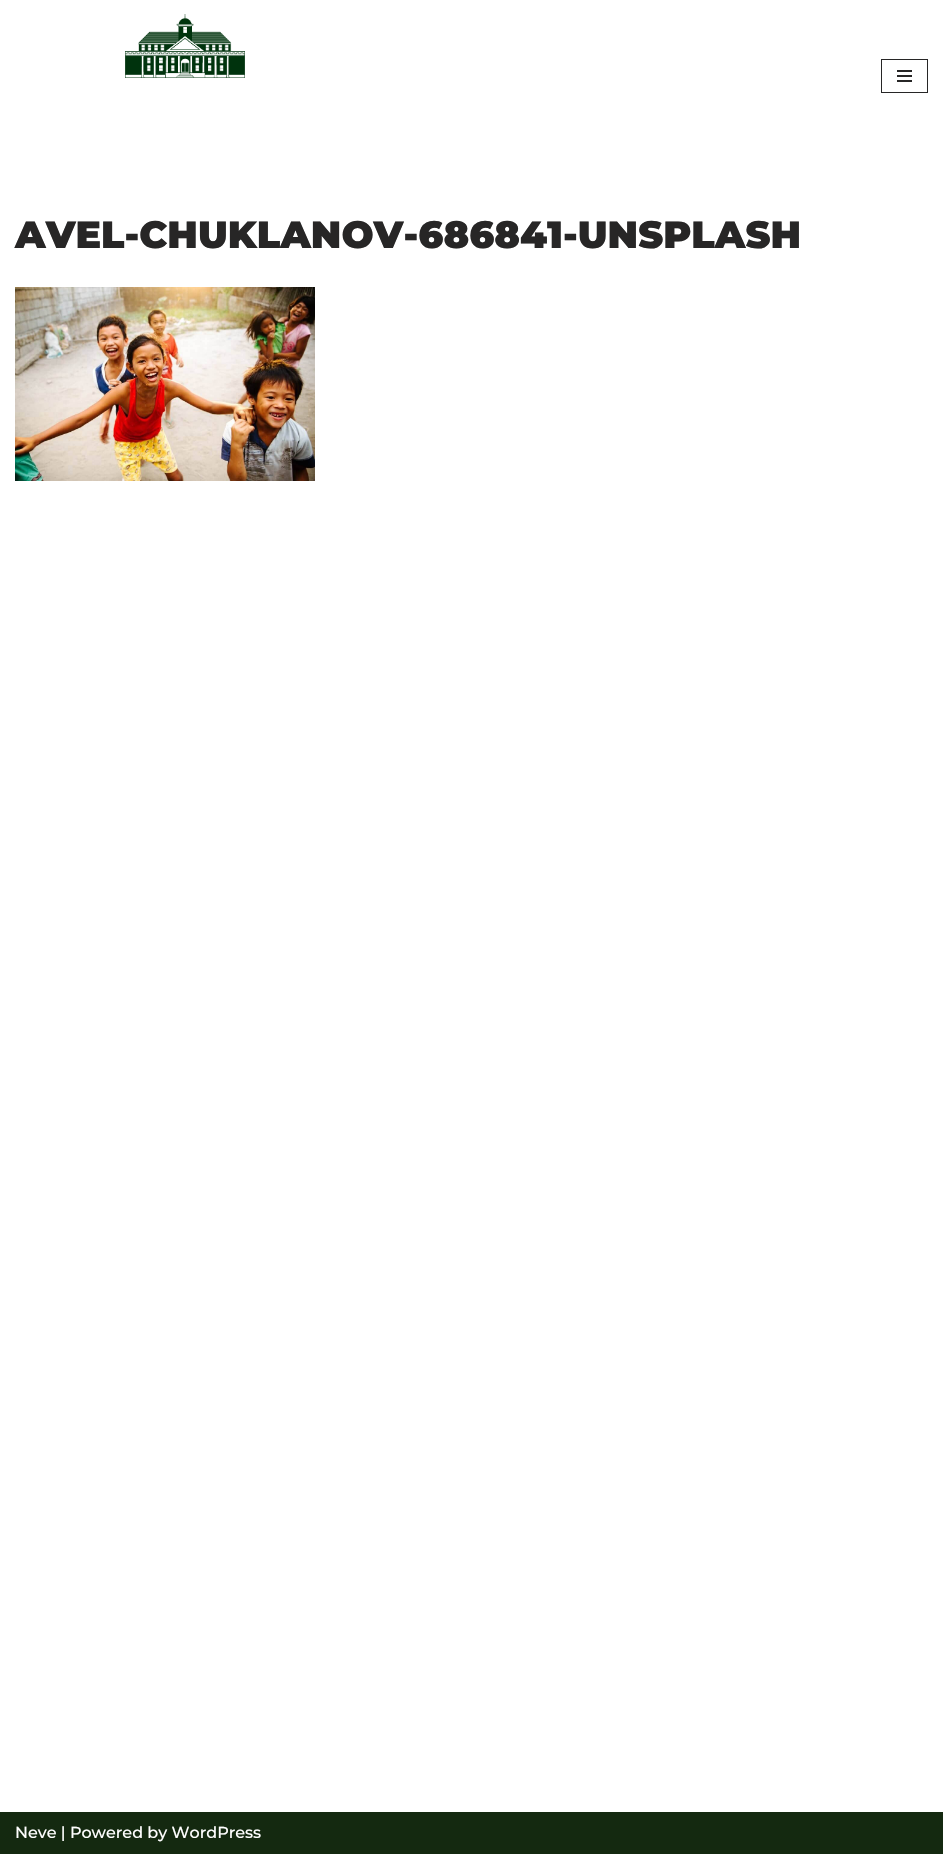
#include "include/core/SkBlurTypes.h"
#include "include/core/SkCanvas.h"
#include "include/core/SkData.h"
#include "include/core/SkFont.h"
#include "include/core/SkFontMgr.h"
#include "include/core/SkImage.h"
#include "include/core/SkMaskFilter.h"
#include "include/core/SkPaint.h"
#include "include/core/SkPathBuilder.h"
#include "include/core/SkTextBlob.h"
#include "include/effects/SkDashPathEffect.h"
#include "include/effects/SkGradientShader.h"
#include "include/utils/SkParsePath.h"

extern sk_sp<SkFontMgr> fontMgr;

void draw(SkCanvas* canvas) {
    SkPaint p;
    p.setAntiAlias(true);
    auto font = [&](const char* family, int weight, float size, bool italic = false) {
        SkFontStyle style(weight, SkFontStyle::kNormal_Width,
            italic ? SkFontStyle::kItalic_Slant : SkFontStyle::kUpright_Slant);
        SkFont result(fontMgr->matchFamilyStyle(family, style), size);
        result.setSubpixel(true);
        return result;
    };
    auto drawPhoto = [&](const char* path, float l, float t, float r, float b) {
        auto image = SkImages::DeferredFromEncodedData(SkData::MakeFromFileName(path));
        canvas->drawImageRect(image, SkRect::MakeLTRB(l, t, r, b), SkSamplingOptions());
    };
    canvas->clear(0xFFFFFFFF);
    drawPhoto("media/1.png", 125, 14, 245, 78);
    p.setStyle(SkPaint::kStroke_Style);
    p.setStrokeWidth(1);
    p.setColor(0xFF272626);
    canvas->drawRect(SkRect::MakeLTRB(881.5f, 59.5f, 927.5f, 92.5f), p);
    p.setStyle(SkPaint::kFill_Style);
    {
        const struct { float l, t, r, b; SkColor color; } items[] = {
            {897, 70, 912, 72, 0xFF272626},
            {897, 75, 912, 77, 0xFF272626},
            {897, 80, 912, 82, 0xFF272626},
        };
        for (auto [l, t, r, b, color] : items) {
            p.setColor(color);
            canvas->drawRect(SkRect::MakeLTRB(l, t, r, b), p);
        }
    }
    auto font1 = font("Montserrat", 900, 38);
    canvas->drawString("AVEL-CHUKLANOV-686841-UNSPLASH", 15, 248, font1, p);
    drawPhoto("media/2.png", 15, 287, 315, 481);
    p.setColor(0xFF142910);
    canvas->drawRect(SkRect::MakeLTRB(0, 1812, 943, 1854), p);
    auto font2 = font("Montserrat", 500, 16);
    p.setColor(0xFFFFFFFF);
    canvas->drawString("Neve | Powered by WordPress", 15, 1838, font2, p);
}
